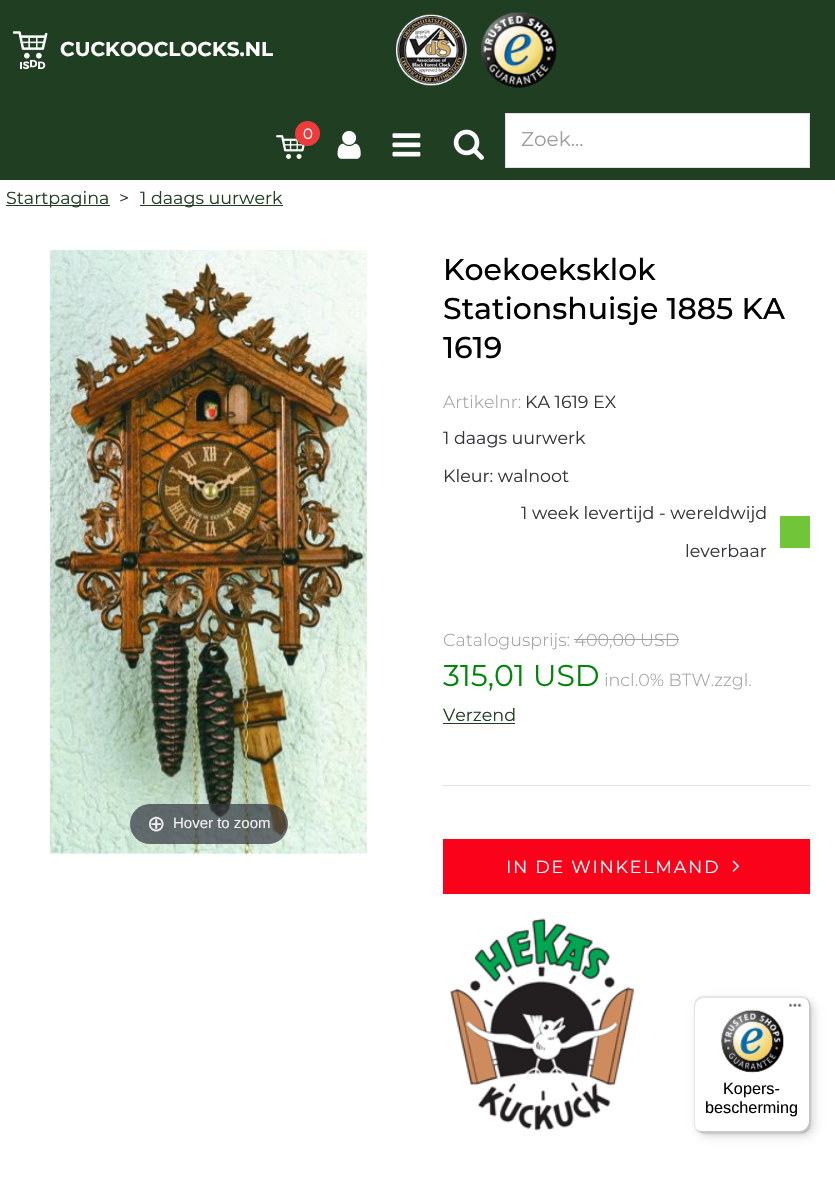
#include "include/core/SkBlurTypes.h"
#include "include/core/SkCanvas.h"
#include "include/core/SkData.h"
#include "include/core/SkFont.h"
#include "include/core/SkFontMgr.h"
#include "include/core/SkImage.h"
#include "include/core/SkMaskFilter.h"
#include "include/core/SkPaint.h"
#include "include/core/SkPathBuilder.h"
#include "include/core/SkTextBlob.h"
#include "include/effects/SkDashPathEffect.h"
#include "include/effects/SkGradientShader.h"
#include "include/utils/SkParsePath.h"

extern sk_sp<SkFontMgr> fontMgr;

void draw(SkCanvas* canvas) {
    SkPaint p;
    p.setAntiAlias(true);
    auto font = [&](const char* family, int weight, float size, bool italic = false) {
        SkFontStyle style(weight, SkFontStyle::kNormal_Width,
            italic ? SkFontStyle::kItalic_Slant : SkFontStyle::kUpright_Slant);
        SkFont result(fontMgr->matchFamilyStyle(family, style), size);
        result.setSubpixel(true);
        return result;
    };
    auto drawTracked = [&](const char* s, float x, float y, const SkFont& font, const SkPaint& ink, float letter, float word) {
        std::vector<SkGlyphID> glyphs(font.countText(s, strlen(s), SkTextEncoding::kUTF8));
        std::vector<float> xs(glyphs.size());
        font.textToGlyphs(s, strlen(s), SkTextEncoding::kUTF8, glyphs);
        font.getXPos(glyphs, xs, x);
        float extra = 0;
        for (size_t i = 0; i < glyphs.size(); i++) {
            xs[i] += extra;
            extra += letter + word * (glyphs[i] == font.unicharToGlyph(' '));
        }
        canvas->drawTextBlob(SkTextBlob::MakeFromPosHGlyphs(glyphs, xs, y, font), 0, 0, ink);
    };
    auto drawPhoto = [&](const char* path, float l, float t, float r, float b) {
        auto image = SkImages::DeferredFromEncodedData(SkData::MakeFromFileName(path));
        canvas->drawImageRect(image, SkRect::MakeLTRB(l, t, r, b), SkSamplingOptions());
    };
    canvas->clear(0xFFFFFFFF);
    p.setColor(0xFF203E22);
    canvas->drawRect(SkRect::MakeLTRB(0, 0, 835, 180), p);
    drawPhoto("media/1.png", 13, 31, 48, 69);
    auto font1 = font("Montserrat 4", 100, 20);
    p.setColor(0xFFFFFFFF);
    canvas->drawString("CUCKOOCLOCKS.NL", 60, 56, font1, p);
    drawPhoto("media/2.png", 396, 14, 467, 86);
    drawPhoto("media/3.png", 481, 12, 557, 88);
    drawPhoto("media/4.png", 276, 135, 305, 159);
    p.setColor(0xFFEE3C3C);
    canvas->drawCircle(307.5f, 133.5f, 12.5f, p);
    auto font2 = font("Montserrat", 100, 15);
    p.setColor(0xFFFFFFFF);
    canvas->drawString("0", 303, 139, font2, p);
    drawPhoto("media/5.png", 337, 130, 361, 159);
    drawPhoto("media/6.png", 392, 133, 421, 157);
    drawPhoto("media/7.png", 453, 129, 484, 160);
    canvas->drawRect(SkRect::MakeLTRB(505.5f, 113.5f, 809.5f, 167.5f), p);
    p.setStyle(SkPaint::kStroke_Style);
    p.setStrokeWidth(1);
    p.setColor(0xFFE2E2E2);
    canvas->drawRect(SkRect::MakeLTRB(505.5f, 113.5f, 809.5f, 167.5f), p);
    auto font3 = font("Montserrat", 100, 20);
    p.setStyle(SkPaint::kFill_Style);
    p.setColor(0xFF9C9E9F);
    canvas->drawString("Zoek...", 521, 146, font3, p);
    p.setColor(0xFF203E22);
    canvas->drawRect(SkRect::MakeLTRB(6, 205, 110, 206), p);
    auto font4 = font("Montserrat", 100, 17.5f);
    canvas->drawString("Startpagina", 6, 204, font4, p);
    p.setColor(0xFF343538);
    canvas->drawString(">", 119, 204, font4, p);
    p.setColor(0xFF203E22);
    canvas->drawRect(SkRect::MakeLTRB(140, 205, 283, 206), p);
    canvas->drawString("1 daags uurwerk", 140, 204, font4, p);
    drawPhoto("media/8.png", 50, 250, 367, 854);
    p.setColor(0xB331333D);
    canvas->drawRoundRect(SkRect::MakeLTRB(130, 804, 288, 844), 20, 20, p);
    auto font5 = font("DejaVu Sans", 400, 22);
    p.setColor(0xFFEEEEEE);
    canvas->drawString("⊕", 147, 831, font5, p);
    auto font6 = font("Liberation Sans", 400, 15);
    canvas->drawString("Hover to zoom", 173, 828, font6, p);
    auto font7 = font("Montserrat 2", 100, 30);
    p.setColor(0xFF000000);
    {
        const struct { const char* s; float x, y; } items[] = {
            {"Koekoeksklok", 443, 280},
            {"Stationshuisje 1885 KA", 443, 319},
            {"1619", 443, 358},
        };
        for (auto [s, x, y] : items) {
            canvas->drawString(s, x, y, font7, p);
        }
    }
    auto font8 = font("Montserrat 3", 100, 17.5f);
    p.setColor(0xFF9C9E9F);
    canvas->drawString("Artikelnr:", 443, 408, font8, p);
    p.setColor(0xFF343538);
    {
        const struct { const char* s; float x, y; } items[] = {
            {"KA 1619 EX", 525, 408},
            {"1 daags uurwerk", 443, 444},
            {"Kleur: walnoot", 443, 482},
            {"1 week levertijd - wereldwijd", 521, 519},
            {"leverbaar", 685, 557},
        };
        for (auto [s, x, y] : items) {
            canvas->drawString(s, x, y, font4, p);
        }
    }
    p.setColor(0xFF71C539);
    canvas->drawRect(SkRect::MakeLTRB(780, 516, 810, 548), p);
    p.setColor(0xFFE2E2E2);
    canvas->drawRect(SkRect::MakeLTRB(443, 785, 810, 786), p);
    p.setColor(0xFF9C9E9F);
    canvas->drawString("Catalogusprijs: 400,00 USD", 443, 646, font8, p);
    canvas->drawRect(SkRect::MakeLTRB(574, 639, 679, 640), p);
    auto font9 = font("Montserrat", 100, 30);
    p.setColor(0xFF01860A);
    canvas->drawString("315,01 USD", 443, 686, font9, p);
    p.setColor(0xFF9C9E9F);
    canvas->drawString("incl.0% BTW.zzgl.", 604, 686, font8, p);
    p.setColor(0xFF203E22);
    canvas->drawString("Verzend", 443, 721, font4, p);
    canvas->drawRect(SkRect::MakeLTRB(443, 723, 515, 724), p);
    p.setColor(0xFFFB021B);
    canvas->drawRect(SkRect::MakeLTRB(443, 839, 810, 894), p);
    p.setColor(0xFFFFFFFF);
    drawTracked("IN DE WINKELMAND", 506, 873, font4, p, 1.75f, 0);
    drawPhoto("media/9.png", 732, 860, 740, 872);
    drawPhoto("media/10.png", 450, 918, 634, 1131);
    p.setColor(0x26000000);
    p.setMaskFilter(SkMaskFilter::MakeBlur(kNormal_SkBlurStyle, 5));
    canvas->drawRoundRect(SkRect::MakeLTRB(698, 1000, 814, 1136), 10, 10, p);
    p.setMaskFilter(nullptr);
    p.setMaskFilter(SkMaskFilter::MakeBlur(kNormal_SkBlurStyle, 1));
    canvas->drawRoundRect(SkRect::MakeLTRB(695, 998, 811, 1134), 10, 10, p);
    p.setMaskFilter(nullptr);
    p.setColor(0xFFFFFFFF);
    canvas->drawRoundRect(SkRect::MakeLTRB(694, 996, 810, 1133), 10, 10, p);
    p.setColor(0xFFE5E5E5);
    canvas->drawPath(SkPathBuilder().moveTo(705, 998).lineTo(801, 998).cubicTo(804, 998, 807, 999, 809, 1002).cubicTo(807, 998, 804, 996, 800, 996).lineTo(704, 996).cubicTo(698, 996, 694, 1000, 694, 1006).lineTo(694, 1123).cubicTo(694, 1126, 695, 1129, 698, 1131).cubicTo(696, 1129, 695, 1126, 695, 1124).lineTo(695, 1008).cubicTo(695, 1002, 699, 998, 705, 998).close().detach(), p);
    p.setColor(0x33000000);
    canvas->drawPath(SkPathBuilder().moveTo(696, 1129).cubicTo(698, 1131, 701, 1133, 704, 1133).lineTo(800, 1133).cubicTo(806, 1133, 810, 1129, 810, 1123).lineTo(810, 1006).cubicTo(810, 1003, 809, 1000, 807, 998).cubicTo(808, 1000, 809, 1002, 809, 1005).lineTo(809, 1121).cubicTo(809, 1127, 804, 1131, 799, 1131).lineTo(702, 1131).cubicTo(700, 1131, 698, 1130, 696, 1129).close().detach(), p);
    p.setColor(0x33323232);
    canvas->drawPath(SkPathBuilder().moveTo(696, 1130).cubicTo(698, 1132, 701, 1133, 704, 1133).lineTo(800, 1133).cubicTo(806, 1133, 810, 1129, 810, 1123).lineTo(810, 1006).cubicTo(810, 1000, 806, 996, 800, 996).lineTo(799, 996).cubicTo(805, 996, 809, 1000, 809, 1006).lineTo(809, 1122).cubicTo(809, 1127, 805, 1132, 799, 1132).lineTo(703, 1132).cubicTo(700, 1132, 698, 1131, 696, 1130).close().detach(), p);
    p.setColor(0x4DFFFFFF);
    canvas->drawPath(SkPathBuilder().moveTo(695, 1128).cubicTo(697, 1131, 700, 1133, 704, 1133).lineTo(800, 1133).cubicTo(806, 1133, 810, 1129, 810, 1123).lineTo(810, 1006).cubicTo(810, 1000, 806, 996, 800, 996).lineTo(799, 996).cubicTo(805, 996, 809, 1000, 809, 1006).lineTo(809, 1122).cubicTo(809, 1127, 805, 1132, 799, 1132).lineTo(703, 1132).cubicTo(700, 1132, 697, 1130, 695, 1128).close().detach(), p);
    drawPhoto("media/11.png", 789, 1003, 802, 1007);
    drawPhoto("media/12.png", 721, 1009, 784, 1073);
    auto font10 = font("Liberation Sans", 400, 16.25f);
    p.setColor(0xFF000000);
    canvas->drawString("Kopers-", 723, 1094, font10, p);
    canvas->drawString("bescherming", 705, 1113, font10, p);
}
